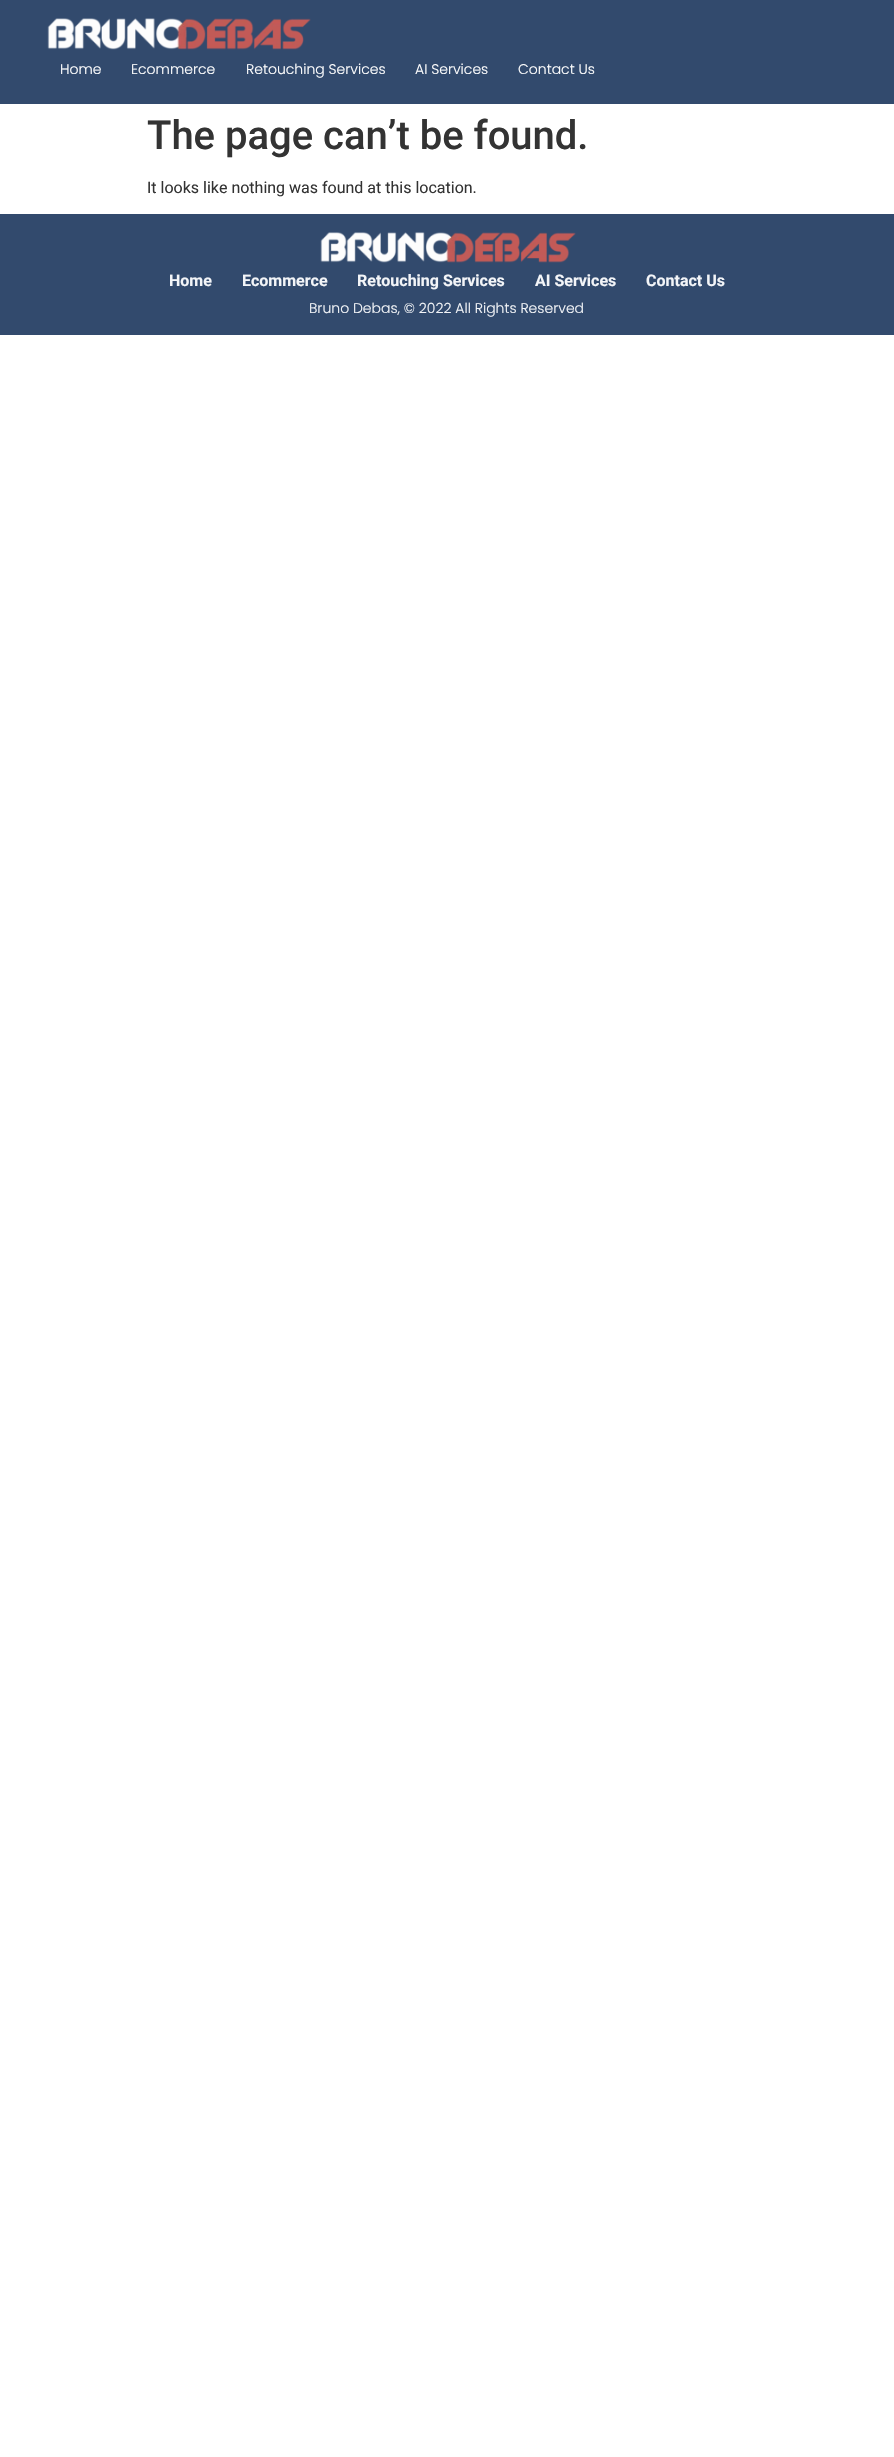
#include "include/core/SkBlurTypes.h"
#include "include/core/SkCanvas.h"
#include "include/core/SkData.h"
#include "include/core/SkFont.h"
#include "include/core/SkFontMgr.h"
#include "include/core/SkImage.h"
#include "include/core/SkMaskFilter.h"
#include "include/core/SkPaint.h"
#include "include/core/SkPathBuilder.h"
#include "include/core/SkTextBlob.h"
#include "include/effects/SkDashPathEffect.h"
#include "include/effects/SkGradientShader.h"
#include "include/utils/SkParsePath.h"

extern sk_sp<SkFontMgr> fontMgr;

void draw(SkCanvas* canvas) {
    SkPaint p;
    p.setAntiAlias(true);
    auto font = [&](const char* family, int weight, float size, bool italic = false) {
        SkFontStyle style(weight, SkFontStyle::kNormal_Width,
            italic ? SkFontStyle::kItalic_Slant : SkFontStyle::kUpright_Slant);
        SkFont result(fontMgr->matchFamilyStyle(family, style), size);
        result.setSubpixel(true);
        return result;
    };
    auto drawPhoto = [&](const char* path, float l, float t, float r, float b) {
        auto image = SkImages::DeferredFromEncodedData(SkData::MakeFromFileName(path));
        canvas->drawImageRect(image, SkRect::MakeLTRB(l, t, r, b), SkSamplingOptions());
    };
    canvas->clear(0xFFFFFFFF);
    p.setColor(0xFF324A6D);
    canvas->drawRect(SkRect::MakeLTRB(0, 0, 894, 104), p);
    drawPhoto("media/1.png", 47, 18, 311, 50);
    auto font1 = font("Poppins", 300, 14);
    p.setColor(0xFFFFFFFF);
    {
        const struct { const char* s; float x, y; } items[] = {
            {"Home", 60, 74},
            {"Ecommerce", 131, 74},
            {"Retouching Services", 246, 74},
            {"AI Services", 415, 74},
            {"Contact Us", 518, 74},
        };
        for (auto [s, x, y] : items) {
            canvas->drawString(s, x, y, font1, p);
        }
    }
    auto font2 = font("Roboto", 500, 40);
    p.setColor(0xFF333333);
    canvas->drawString("The page can’t be found.", 147, 149, font2, p);
    auto font3 = font("Roboto", 400, 16);
    canvas->drawString("It looks like nothing was found at this location.", 147, 193, font3, p);
    p.setColor(0xFF324A6D);
    canvas->drawRect(SkRect::MakeLTRB(0, 214, 894, 335), p);
    drawPhoto("media/2.png", 320, 232, 576, 263);
    auto font4 = font("Roboto", 700, 16);
    p.setColor(0xFFF3F5F8);
    {
        const struct { const char* s; float x, y; } items[] = {
            {"Home", 169, 286},
            {"Ecommerce", 242, 286},
            {"Retouching Services", 357, 286},
            {"AI Services", 535, 286},
            {"Contact Us", 646, 286},
        };
        for (auto [s, x, y] : items) {
            canvas->drawString(s, x, y, font4, p);
        }
    }
    canvas->drawString("Bruno Debas, © 2022 All Rights Reserved", 309, 313, font1, p);
}
